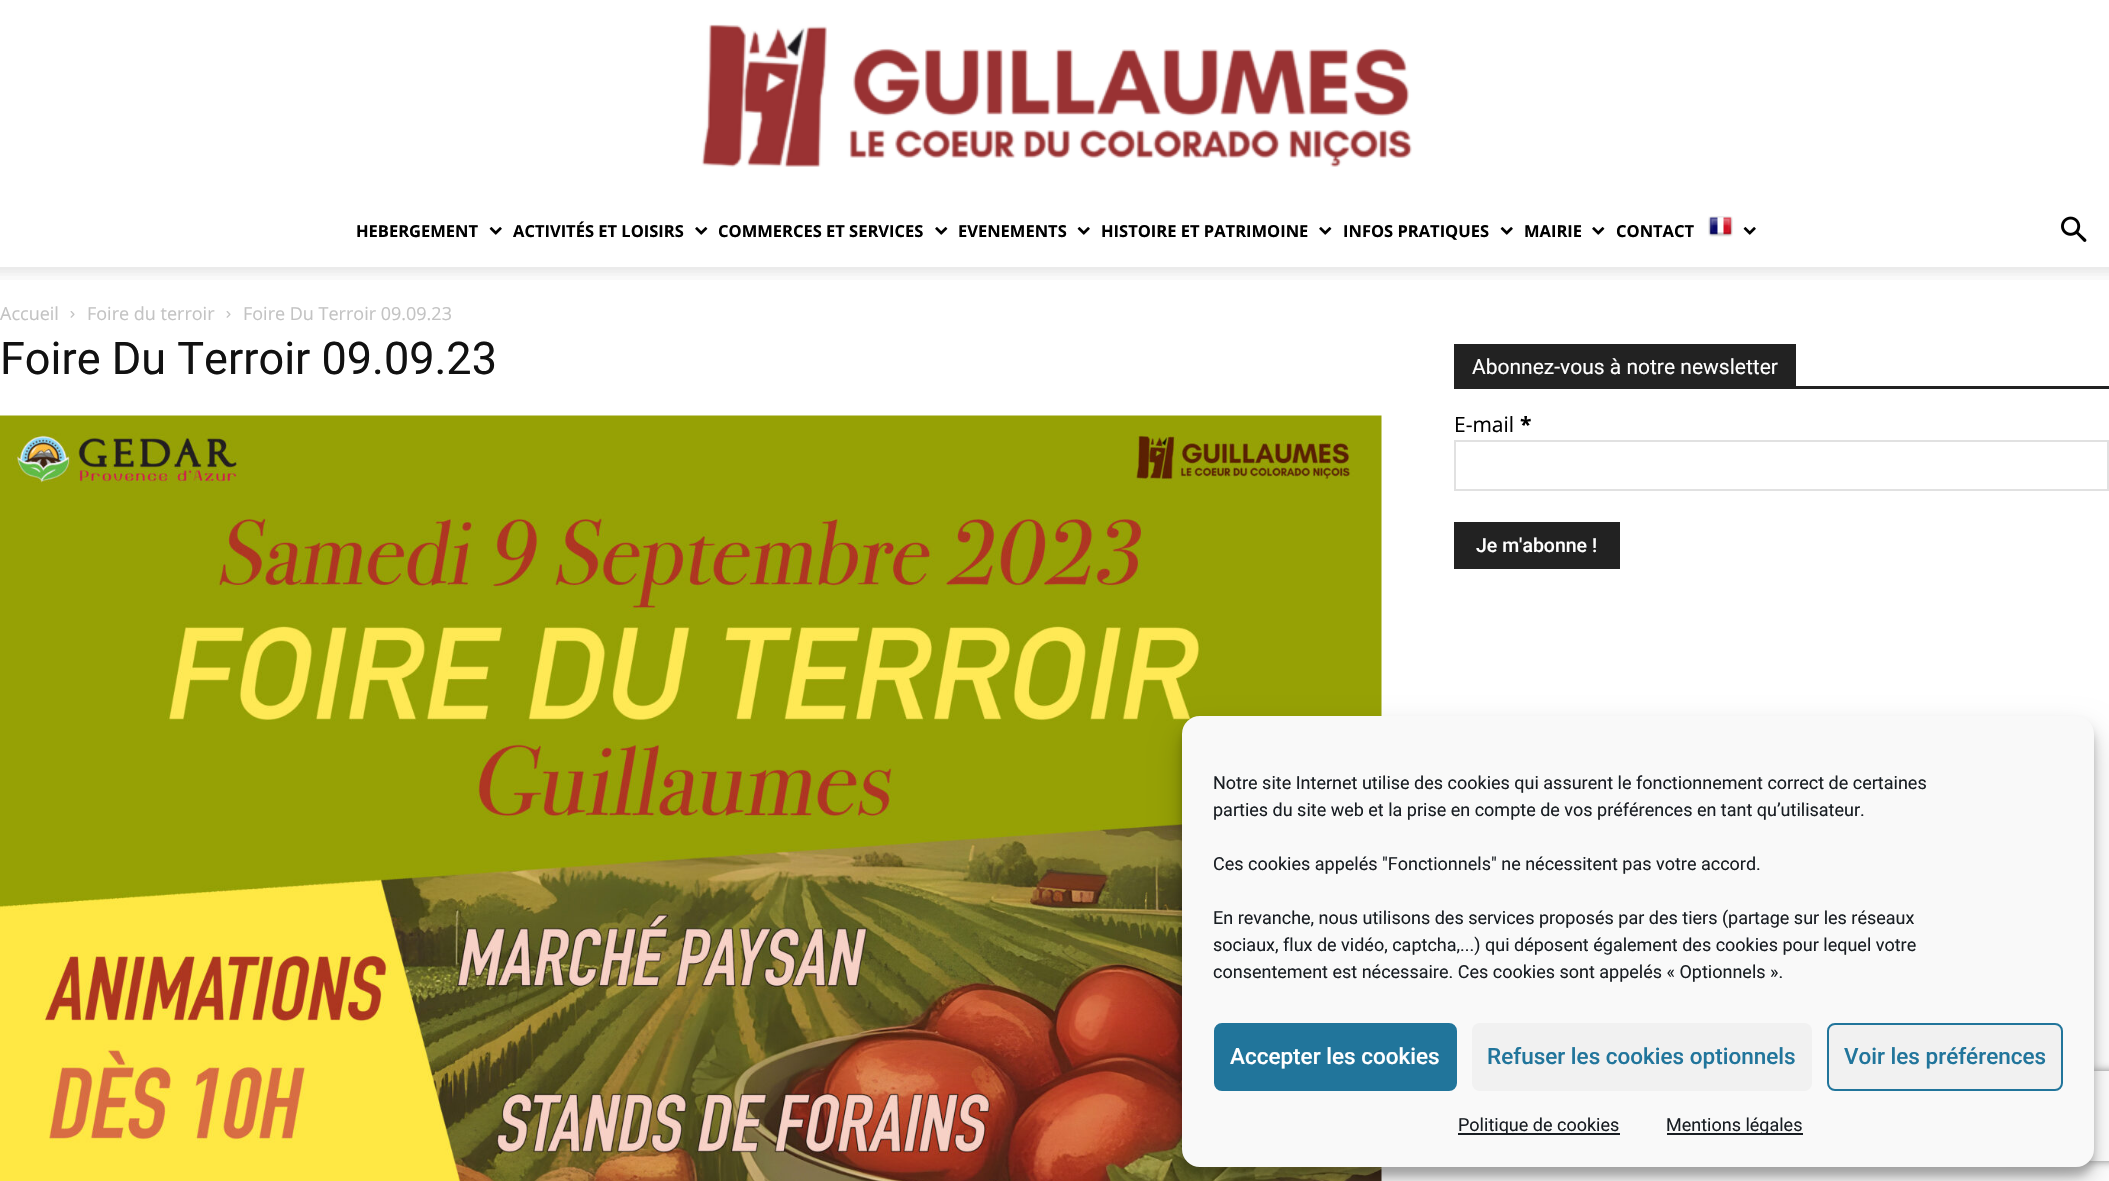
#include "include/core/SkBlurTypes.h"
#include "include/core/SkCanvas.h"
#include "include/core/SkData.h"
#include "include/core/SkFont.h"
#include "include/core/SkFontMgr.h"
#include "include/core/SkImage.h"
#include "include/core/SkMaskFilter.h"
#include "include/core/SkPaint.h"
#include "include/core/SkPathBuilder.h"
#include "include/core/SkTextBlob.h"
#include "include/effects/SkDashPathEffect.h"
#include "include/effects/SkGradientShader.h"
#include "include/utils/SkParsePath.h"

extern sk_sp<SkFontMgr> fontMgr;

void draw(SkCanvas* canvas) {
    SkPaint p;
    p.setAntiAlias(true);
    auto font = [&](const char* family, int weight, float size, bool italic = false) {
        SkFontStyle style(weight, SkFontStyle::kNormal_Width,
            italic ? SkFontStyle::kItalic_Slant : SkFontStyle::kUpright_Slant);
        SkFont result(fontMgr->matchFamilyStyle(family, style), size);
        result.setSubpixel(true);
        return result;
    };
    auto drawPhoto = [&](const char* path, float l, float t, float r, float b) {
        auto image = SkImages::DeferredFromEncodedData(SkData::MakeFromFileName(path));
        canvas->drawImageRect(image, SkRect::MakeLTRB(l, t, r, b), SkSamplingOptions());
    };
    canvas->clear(0xFFFFFFFF);
    drawPhoto("media/1.png", 701, 24, 1412, 167);
    auto font1 = font("Open Sans", 700, 16.5f);
    p.setColor(0xFF000000);
    canvas->drawString("HEBERGEMENT", 356, 237, font1, p);
    drawPhoto("media/2.png", 489, 227, 502, 235);
    canvas->drawString("ACTIVITÉS ET LOISIRS", 513, 237, font1, p);
    drawPhoto("media/3.png", 695, 227, 708, 235);
    canvas->drawString("COMMERCES ET SERVICES", 718, 237, font1, p);
    drawPhoto("media/3.png", 935, 227, 948, 235);
    canvas->drawString("EVENEMENTS", 958, 237, font1, p);
    drawPhoto("media/2.png", 1077, 227, 1090, 235);
    canvas->drawString("HISTOIRE ET PATRIMOINE", 1101, 237, font1, p);
    drawPhoto("media/3.png", 1319, 227, 1332, 235);
    canvas->drawString("INFOS PRATIQUES", 1343, 237, font1, p);
    drawPhoto("media/2.png", 1500, 227, 1513, 235);
    canvas->drawString("MAIRIE", 1524, 237, font1, p);
    drawPhoto("media/3.png", 1592, 227, 1605, 235);
    canvas->drawString("CONTACT", 1616, 237, font1, p);
    drawPhoto("media/4.png", 1708, 216, 1733, 237);
    drawPhoto("media/2.png", 1743, 227, 1756, 235);
    drawPhoto("media/5.png", 2061, 216, 2087, 242);
    drawPhoto("media/6.png", 0, 267, 2109, 280);
    auto font2 = font("Open Sans", 400, 18);
    p.setColor(0xFFC3C3C3);
    canvas->drawString("Accueil", 0, 320, font2, p);
    drawPhoto("media/7.png", 70, 311, 75, 318);
    canvas->drawString("Foire du terroir", 87, 320, font2, p);
    drawPhoto("media/7.png", 226, 311, 231, 318);
    canvas->drawString("Foire Du Terroir 09.09.23", 243, 320, font2, p);
    auto font3 = font("Roboto", 400, 45);
    p.setColor(0xFF111111);
    canvas->drawString("Foire Du Terroir 09.09.23", 0, 374, font3, p);
    drawPhoto("media/8.png", 0, 415, 1382, 1181);
    p.setColor(0xFF222222);
    canvas->drawRect(SkRect::MakeLTRB(1454, 386, 2109, 389), p);
    canvas->drawRect(SkRect::MakeLTRB(1454, 344, 1796, 386), p);
    auto font4 = font("Roboto", 400, 21);
    p.setColor(0xFFFFFFFF);
    canvas->drawString("Abonnez-vous à notre newsletter", 1472, 374, font4, p);
    auto font5 = font("Open Sans", 400, 21);
    p.setColor(0xFF000000);
    canvas->drawString("E-mail", 1454, 432, font5, p);
    auto font6 = font("Open Sans", 700, 21);
    canvas->drawString("*", 1520, 432, font6, p);
    p.setStyle(SkPaint::kStroke_Style);
    p.setStrokeWidth(2);
    p.setColor(0xFFE1E1E1);
    canvas->drawRect(SkRect::MakeLTRB(1455, 441, 2108, 490), p);
    p.setStyle(SkPaint::kFill_Style);
    p.setColor(0xFF222222);
    canvas->drawRect(SkRect::MakeLTRB(1454, 522, 1620, 569), p);
    auto font7 = font("Roboto", 500, 19.5f);
    p.setColor(0xFFFFFFFF);
    canvas->drawString("Je m'abonne !", 1476, 552, font7, p);
    p.setColor(0x3B000000);
    p.setMaskFilter(SkMaskFilter::MakeBlur(kNormal_SkBlurStyle, 4.5f));
    canvas->drawRoundRect(SkRect::MakeLTRB(1182, 725, 2094, 1176), 18, 18, p);
    p.setMaskFilter(nullptr);
    p.setColor(0x30000000);
    p.setMaskFilter(SkMaskFilter::MakeBlur(kNormal_SkBlurStyle, 15));
    canvas->drawRoundRect(SkRect::MakeLTRB(1182, 731, 2094, 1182), 18, 18, p);
    p.setMaskFilter(nullptr);
    canvas->save();
    canvas->clipPath(SkPathBuilder(SkPathFillType::kEvenOdd).moveTo(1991, 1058).lineTo(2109, 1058).lineTo(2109, 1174).lineTo(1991, 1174).close().moveTo(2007, 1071).lineTo(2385, 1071).cubicTo(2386.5f, 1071, 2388, 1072.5f, 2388, 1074).lineTo(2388, 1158).cubicTo(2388, 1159.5f, 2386.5f, 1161, 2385, 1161).lineTo(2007, 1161).cubicTo(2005.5f, 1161, 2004, 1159.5f, 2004, 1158).lineTo(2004, 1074).cubicTo(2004, 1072.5f, 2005.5f, 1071, 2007, 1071).close().detach(), true);
    p.setColor(0xFF808080);
    p.setMaskFilter(SkMaskFilter::MakeBlur(kNormal_SkBlurStyle, 4));
    canvas->drawRoundRect(SkRect::MakeLTRB(2004, 1071, 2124, 1161), 3, 3, p);
    p.setMaskFilter(nullptr);
    canvas->restore();
    p.setColor(0xFFF9F9F9);
    canvas->drawRoundRect(SkRect::MakeLTRB(1183, 717, 2093, 1166), 17, 17, p);
    p.setStyle(SkPaint::kStroke_Style);
    canvas->drawRoundRect(SkRect::MakeLTRB(1183, 717, 2093, 1166), 17, 17, p);
    auto font8 = font("Roboto", 400, 18);
    p.setStyle(SkPaint::kFill_Style);
    p.setColor(0xFF191E23);
    {
        const struct { const char* s; float x, y; } items[] = {
            {"Notre site Internet utilise des cookies qui assurent le fonctionnement correct de certaines", 1213, 789},
            {"parties du site web et la prise en compte de vos préférences en tant qu’utilisateur.", 1213, 816},
            {"Ces cookies appelés \"Fonctionnels\" ne nécessitent pas votre accord.", 1213, 870},
            {"En revanche, nous utilisons des services proposés par des tiers (partage sur les réseaux", 1213, 924},
            {"sociaux, flux de vidéo, captcha,...) qui déposent également des cookies pour lequel votre", 1213, 951},
            {"consentement est nécessaire. Ces cookies sont appelés « Optionnels ».", 1213, 978},
        };
        for (auto [s, x, y] : items) {
            canvas->drawString(s, x, y, font8, p);
        }
    }
    p.setColor(0xFF21759B);
    canvas->drawRoundRect(SkRect::MakeLTRB(1215, 1024, 1456, 1090), 7, 7, p);
    p.setStyle(SkPaint::kStroke_Style);
    canvas->drawRoundRect(SkRect::MakeLTRB(1215, 1024, 1456, 1090), 7, 7, p);
    auto font9 = font("Roboto", 500, 22.5f);
    p.setStyle(SkPaint::kFill_Style);
    p.setColor(0xFFFFFFFF);
    canvas->drawString("Accepter les cookies", 1230, 1064, font9, p);
    p.setColor(0xFFF1F1F1);
    canvas->drawRoundRect(SkRect::MakeLTRB(1472, 1023, 1812, 1091), 8, 8, p);
    p.setColor(0xFF21759B);
    canvas->drawString("Refuser les cookies optionnels", 1487, 1064, font9, p);
    p.setColor(0xFFF1F1F1);
    canvas->drawRoundRect(SkRect::MakeLTRB(1828, 1024, 2062, 1090), 7, 7, p);
    p.setStyle(SkPaint::kStroke_Style);
    p.setColor(0xFF21759B);
    canvas->drawRoundRect(SkRect::MakeLTRB(1828, 1024, 2062, 1090), 7, 7, p);
    p.setStyle(SkPaint::kFill_Style);
    canvas->drawString("Voir les préférences", 1844, 1064, font9, p);
    p.setColor(0xFF191E23);
    canvas->drawRect(SkRect::MakeLTRB(1458, 1133, 1620, 1135), p);
    canvas->drawString("Politique de cookies", 1458, 1131, font8, p);
    canvas->drawRect(SkRect::MakeLTRB(1667, 1133, 1803, 1135), p);
    canvas->drawString("Mentions légales", 1666, 1131, font8, p);
}
